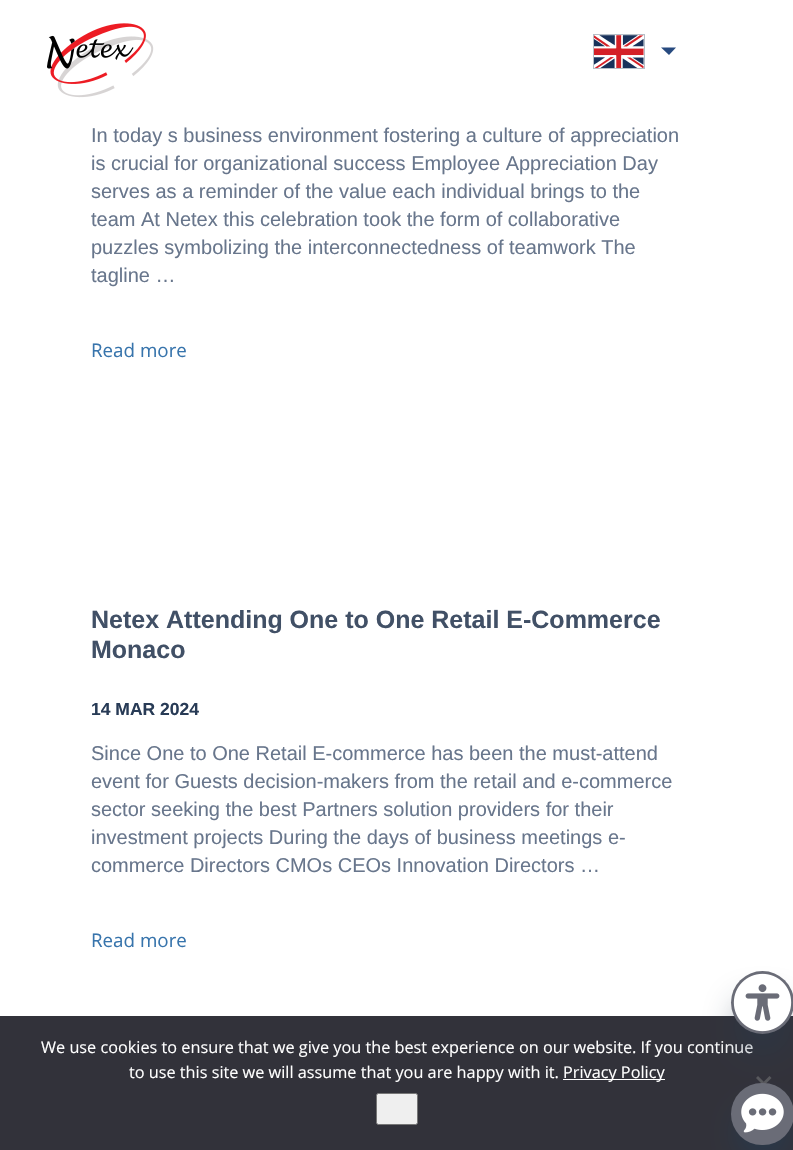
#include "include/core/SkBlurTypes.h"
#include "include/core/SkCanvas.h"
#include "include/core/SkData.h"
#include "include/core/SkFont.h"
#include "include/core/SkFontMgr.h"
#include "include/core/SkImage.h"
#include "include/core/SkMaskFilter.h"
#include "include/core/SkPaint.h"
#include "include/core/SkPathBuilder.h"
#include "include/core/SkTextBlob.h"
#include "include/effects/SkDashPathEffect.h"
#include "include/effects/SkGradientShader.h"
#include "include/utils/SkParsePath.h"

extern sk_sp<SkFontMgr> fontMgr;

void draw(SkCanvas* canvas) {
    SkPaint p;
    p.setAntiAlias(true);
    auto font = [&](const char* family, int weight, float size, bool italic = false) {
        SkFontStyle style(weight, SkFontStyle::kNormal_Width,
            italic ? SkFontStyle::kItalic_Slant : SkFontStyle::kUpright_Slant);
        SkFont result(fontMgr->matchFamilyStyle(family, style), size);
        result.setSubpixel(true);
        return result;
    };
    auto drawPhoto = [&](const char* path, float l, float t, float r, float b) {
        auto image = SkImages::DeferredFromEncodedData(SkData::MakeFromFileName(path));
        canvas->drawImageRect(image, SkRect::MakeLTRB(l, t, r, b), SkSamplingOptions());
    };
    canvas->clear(0xFFFFFFFF);
    drawPhoto("media/1.png", 47, 23, 154, 98);
    p.setStyle(SkPaint::kStroke_Style);
    p.setStrokeWidth(1);
    p.setColor(0xFFB6BFC8);
    canvas->drawRect(SkRect::MakeLTRB(593.5f, 34.5f, 644.5f, 68.5f), p);
    drawPhoto("media/2.png", 594, 35, 644, 68);
    p.setStyle(SkPaint::kFill_Style);
    p.setColor(0xFF274A7F);
    canvas->drawPath(SkPathBuilder().moveTo(661, 47.5f).lineTo(676, 47.5f).lineTo(669, 55).close().detach(), p);
    auto font1 = font("Liberation Sans", 400, 20);
    p.setColor(0xFF68768C);
    {
        const struct { const char* s; float x, y; } items[] = {
            {"In today s business environment fostering a culture of appreciation", 91, 142},
            {"is crucial for organizational success Employee Appreciation Day", 91, 170},
            {"serves as a reminder of the value each individual brings to the", 91, 198},
            {"team At Netex this celebration took the form of collaborative", 91, 226},
            {"puzzles symbolizing the interconnectedness of teamwork The", 91, 254},
            {"tagline …", 91, 282},
        };
        for (auto [s, x, y] : items) {
            canvas->drawString(s, x, y, font1, p);
        }
    }
    auto font2 = font("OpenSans", 400, 18.75f);
    p.setColor(0xFF3774AC);
    canvas->drawString("Read more", 91, 357, font2, p);
    auto font3 = font("Liberation Sans", 700, 25);
    p.setColor(0xFF415066);
    canvas->drawString("Netex Attending One to One Retail E-Commerce", 91, 628, font3, p);
    canvas->drawString("Monaco", 91, 658, font3, p);
    auto font4 = font("Liberation Sans", 700, 17.5f);
    p.setColor(0xFF283B56);
    canvas->drawString("14 MAR 2024", 91, 715, font4, p);
    p.setColor(0xFF68768C);
    {
        const struct { const char* s; float x, y; } items[] = {
            {"Since One to One Retail E-commerce has been the must-attend", 91, 760},
            {"event for Guests decision-makers from the retail and e-commerce", 91, 788},
            {"sector seeking the best Partners solution providers for their", 91, 816},
            {"investment projects During the days of business meetings e-", 91, 844},
            {"commerce Directors CMOs CEOs Innovation Directors …", 91, 872},
        };
        for (auto [s, x, y] : items) {
            canvas->drawString(s, x, y, font1, p);
        }
    }
    p.setColor(0xFF3774AC);
    canvas->drawString("Read more", 91, 947, font2, p);
    p.setColor(0xFF32323A);
    canvas->drawRect(SkRect::MakeLTRB(0, 1016, 793, 1150), p);
    auto font5 = font("OpenSans", 400, 16.25f);
    p.setColor(0xFFFFFFFF);
    canvas->drawString("We use cookies to ensure that we give you the best experience on our website. If you continue", 41, 1053, font5, p);
    canvas->drawString("to use this site we will assume that you are happy with it.", 129, 1078, font5, p);
    canvas->drawRect(SkRect::MakeLTRB(563, 1079, 665, 1080), p);
    canvas->drawString("Privacy Policy", 563, 1078, font5, p);
    p.setColor(0xFF59595D);
    canvas->drawPath(SkPathBuilder().moveTo(769.5f, 1076).lineTo(771.5f, 1078).lineTo(758, 1091.5f).lineTo(756, 1089.5f).close().detach(), p);
    canvas->drawPath(SkPathBuilder().moveTo(756, 1078).lineTo(758, 1076).lineTo(771.5f, 1089.5f).lineTo(769.5f, 1091.5f).close().detach(), p);
    p.setColor(0xFFEFEFEF);
    canvas->drawRoundRect(SkRect::MakeLTRB(376.5f, 1093.5f, 417.5f, 1124.5f), 2, 2, p);
    p.setStyle(SkPaint::kStroke_Style);
    p.setColor(0xFF767676);
    canvas->drawRoundRect(SkRect::MakeLTRB(376.5f, 1093.5f, 417.5f, 1124.5f), 2, 2, p);
    p.setStyle(SkPaint::kFill_Style);
    p.setColor(0xFF26394D);
    p.setMaskFilter(SkMaskFilter::MakeBlur(kNormal_SkBlurStyle, 19));
    canvas->drawRoundRect(SkRect::MakeLTRB(744, 1009, 781, 1046), 18.5f, 18.5f, p);
    p.setMaskFilter(nullptr);
    p.setColor(0xFF6A6C77);
    canvas->drawCircle(762.5f, 1002.5f, 31.5f, p);
    drawPhoto("media/3.png", 733, 973, 792, 1032);
    p.setColor(0xFF26394D);
    p.setMaskFilter(SkMaskFilter::MakeBlur(kNormal_SkBlurStyle, 15.5f));
    canvas->drawRoundRect(SkRect::MakeLTRB(738, 1108, 788, 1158), 25, 25, p);
    p.setMaskFilter(nullptr);
    p.setColor(0xFF6A6C77);
    canvas->drawRoundRect(SkRect::MakeLTRB(731, 1083, 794, 1145), 31, 31, p);
    drawPhoto("media/4.png", 741, 1093, 784, 1133);
}
